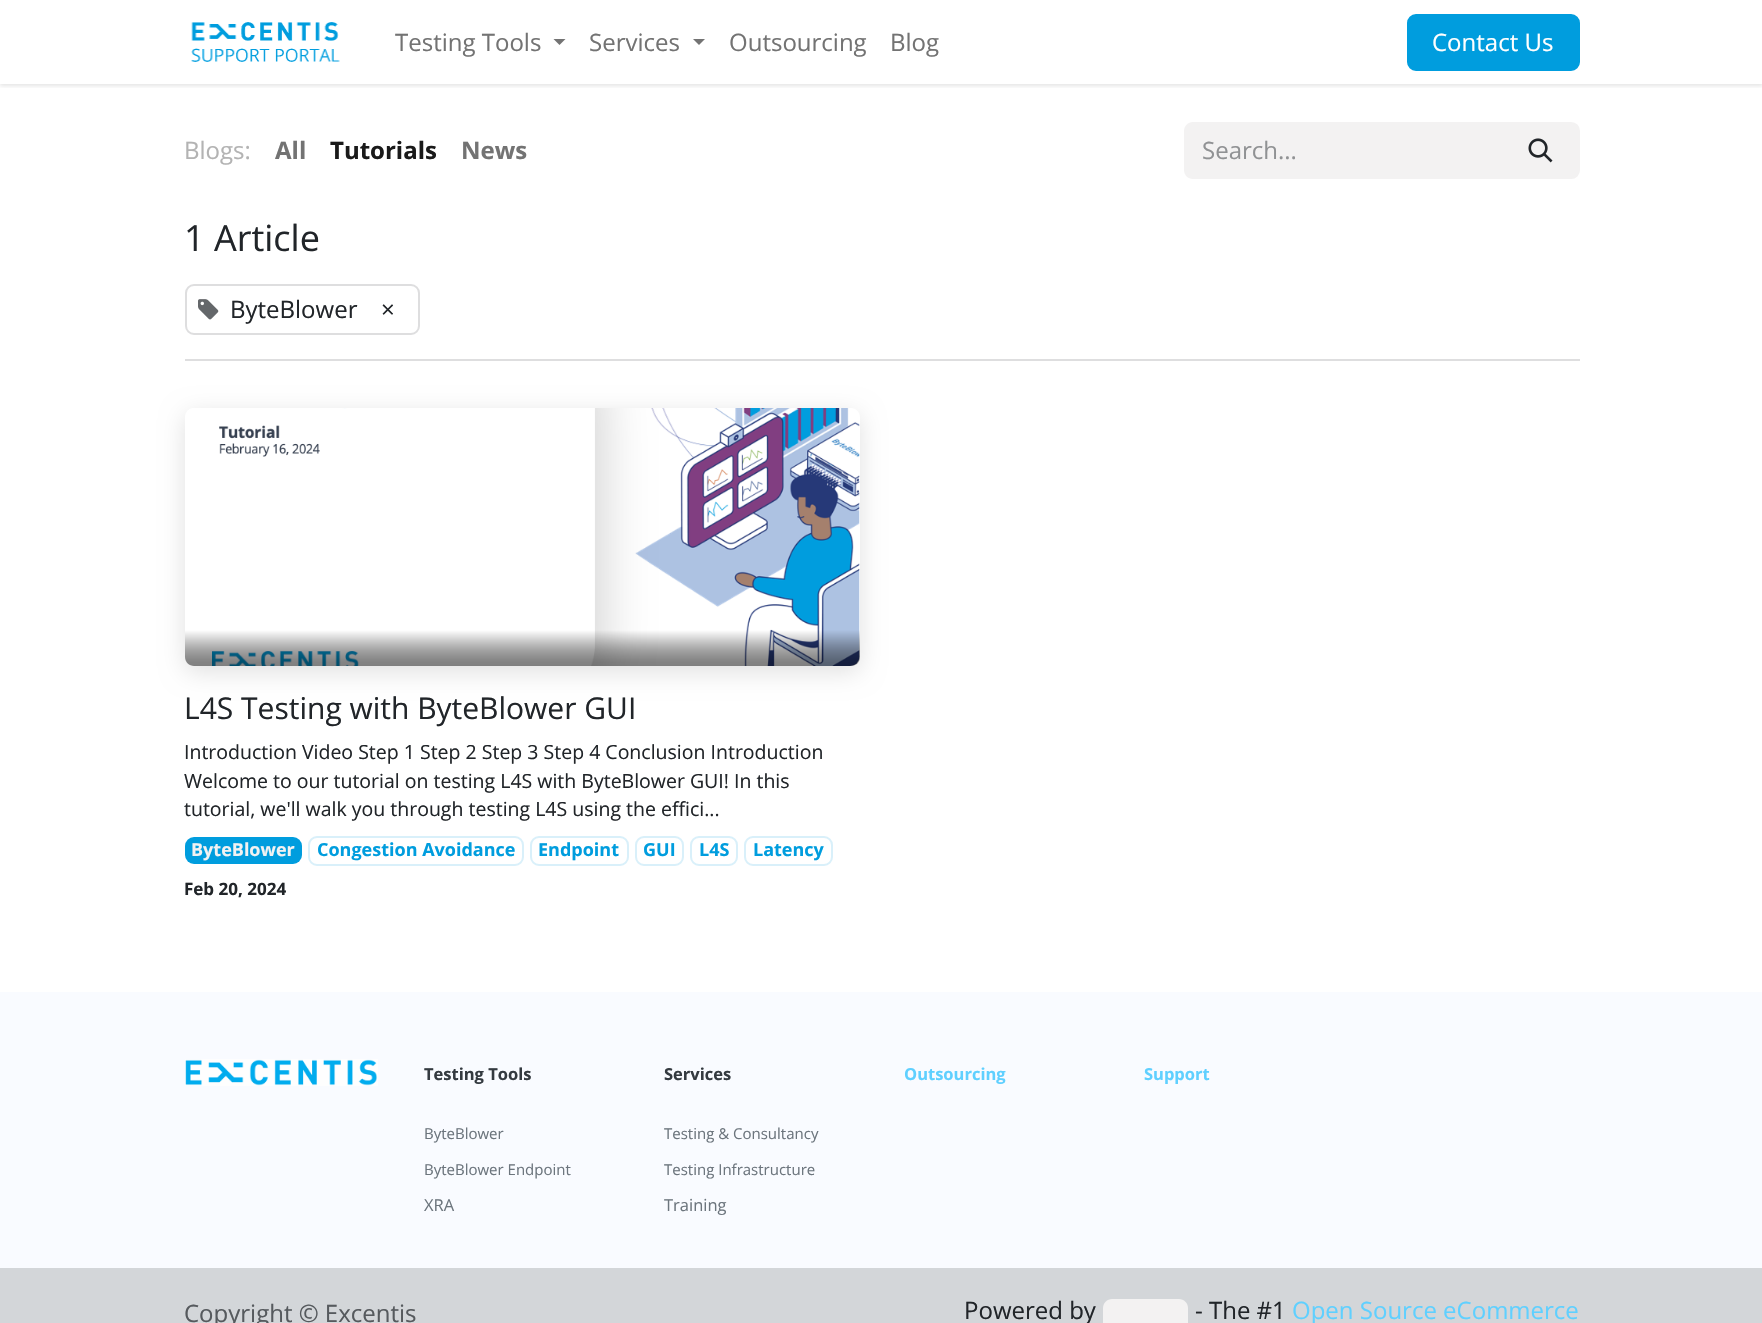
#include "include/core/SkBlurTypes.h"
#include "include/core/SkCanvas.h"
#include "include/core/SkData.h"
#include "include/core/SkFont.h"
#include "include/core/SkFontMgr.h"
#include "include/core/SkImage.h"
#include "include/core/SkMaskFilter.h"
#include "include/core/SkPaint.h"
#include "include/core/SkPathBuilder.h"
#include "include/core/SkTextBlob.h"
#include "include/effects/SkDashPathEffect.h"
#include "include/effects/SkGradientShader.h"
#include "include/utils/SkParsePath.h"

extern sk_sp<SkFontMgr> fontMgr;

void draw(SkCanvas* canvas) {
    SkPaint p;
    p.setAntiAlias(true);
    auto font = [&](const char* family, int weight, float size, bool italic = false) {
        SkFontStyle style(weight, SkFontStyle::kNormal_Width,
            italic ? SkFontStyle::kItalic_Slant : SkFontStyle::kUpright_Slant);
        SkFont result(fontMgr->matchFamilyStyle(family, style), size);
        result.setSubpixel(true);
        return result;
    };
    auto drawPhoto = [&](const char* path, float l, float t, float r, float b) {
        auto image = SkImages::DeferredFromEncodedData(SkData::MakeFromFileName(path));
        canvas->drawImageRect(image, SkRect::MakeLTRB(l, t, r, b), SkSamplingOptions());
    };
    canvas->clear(0xFFFFFFFF);
    canvas->save();
    canvas->clipRect(SkRect::MakeLTRB(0, 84, 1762, 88));
    p.setColor(0x1A000000);
    p.setMaskFilter(SkMaskFilter::MakeBlur(kNormal_SkBlurStyle, 2));
    canvas->drawRect(SkRect::MakeLTRB(0, 2, 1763, 86), p);
    p.setMaskFilter(nullptr);
    canvas->restore();
    drawPhoto("media/1.png", 191, 22, 340, 62);
    auto font1 = font("Open Sans", 400, 24);
    p.setColor(0xFF737373);
    canvas->drawString("Testing Tools", 395, 51, font1, p);
    canvas->drawPath(SkPathBuilder().moveTo(553.5f, 39).lineTo(565.5f, 39).lineTo(559.5f, 45).close().detach(), p);
    canvas->drawString("Services", 589, 51, font1, p);
    canvas->drawPath(SkPathBuilder().moveTo(693, 39).lineTo(705, 39).lineTo(699, 45).close().detach(), p);
    canvas->drawString("Outsourcing", 729, 51, font1, p);
    canvas->drawString("Blog", 890, 51, font1, p);
    p.setColor(0xFF009DDE);
    canvas->drawRoundRect(SkRect::MakeLTRB(1408, 15, 1579, 70), 8, 8, p);
    p.setStyle(SkPaint::kStroke_Style);
    p.setStrokeWidth(2);
    canvas->drawRoundRect(SkRect::MakeLTRB(1408, 15, 1579, 70), 8, 8, p);
    p.setStyle(SkPaint::kFill_Style);
    p.setColor(0xFFFFFFFF);
    canvas->drawString("Contact Us", 1432, 51, font1, p);
    p.setColor(0xFFB3B3B3);
    canvas->drawString("Blogs:", 184, 159, font1, p);
    auto font2 = font("Open Sans", 700, 24);
    p.setColor(0xFF737373);
    canvas->drawString("All", 275, 159, font2, p);
    p.setColor(0xFF1A1A1A);
    canvas->drawString("Tutorials", 330, 159, font2, p);
    p.setColor(0xFF737373);
    canvas->drawString("News", 461, 159, font2, p);
    p.setColor(0xFFF3F2F2);
    canvas->drawPath(SkPathBuilder().moveTo(1193, 122).lineTo(1505, 122).lineTo(1505, 179).lineTo(1193, 179).cubicTo(1188, 179, 1184, 175, 1184, 170).lineTo(1184, 131).cubicTo(1184, 126, 1188, 122, 1193, 122).close().detach(), p);
    p.setColor(0xFF909294);
    canvas->drawString("Search...", 1202, 159, font1, p);
    p.setColor(0xFFF3F2F2);
    canvas->drawPath(SkPathBuilder().moveTo(1504, 123).lineTo(1571, 123).cubicTo(1575.5f, 123, 1579, 126.5f, 1579, 131).lineTo(1579, 170).cubicTo(1579, 174.5f, 1575.5f, 178, 1571, 178).lineTo(1504, 178).close().detach(), p);
    p.setStyle(SkPaint::kStroke_Style);
    canvas->drawPath(SkPathBuilder().moveTo(1504, 123).lineTo(1571, 123).cubicTo(1575.5f, 123, 1579, 126.5f, 1579, 131).lineTo(1579, 170).cubicTo(1579, 174.5f, 1575.5f, 178, 1571, 178).lineTo(1504, 178).close().detach(), p);
    drawPhoto("media/2.png", 1528, 138, 1553, 163);
    auto font3 = font("Open Sans", 400, 36);
    p.setStyle(SkPaint::kFill_Style);
    p.setColor(0xFF212529);
    canvas->drawString("1 Article", 184, 251, font3, p);
    p.setStyle(SkPaint::kStroke_Style);
    p.setColor(0xFFDEDEDF);
    canvas->drawRoundRect(SkRect::MakeLTRB(186, 285, 419, 334), 8, 8, p);
    drawPhoto("media/3.png", 198, 299, 219, 320);
    p.setStyle(SkPaint::kFill_Style);
    p.setColor(0xFF212529);
    canvas->drawString("ByteBlower", 230, 318, font1, p);
    canvas->drawString("×", 381, 318, font1, p);
    p.setColor(0xFFDEDEDF);
    canvas->drawRect(SkRect::MakeLTRB(185, 359, 1580, 361), p);
    canvas->save();
    canvas->clipPath(SkPathBuilder(SkPathFillType::kEvenOdd).moveTo(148, 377).lineTo(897, 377).lineTo(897, 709).lineTo(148, 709).close().moveTo(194, 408).lineTo(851, 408).cubicTo(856, 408, 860, 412, 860, 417).lineTo(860, 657).cubicTo(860, 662, 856, 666, 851, 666).lineTo(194, 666).cubicTo(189, 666, 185, 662, 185, 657).lineTo(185, 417).cubicTo(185, 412, 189, 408, 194, 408).close().detach(), true);
    p.setColor(0x1F000000);
    p.setMaskFilter(SkMaskFilter::MakeBlur(kNormal_SkBlurStyle, 12));
    canvas->drawRoundRect(SkRect::MakeLTRB(185, 414, 860, 672), 9, 9, p);
    p.setMaskFilter(nullptr);
    canvas->restore();
    drawPhoto("media/4.png", 187, 408, 860, 666);
    {
        const SkColor colors[] = {0x00000000, 0x21000000, 0x3B000000, 0x4F000000, 0x5C000000, 0x66000000, 0x6E000000, 0x75000000, 0x7A000000, 0x7D000000, 0x7D000000, 0x80000000, 0x80000000};
        const float stops[] = {0, 0.19f, 0.34f, 0.47f, 0.56f, 0.65f, 0.73f, 0.8f, 0.86f, 0.91f, 0.95f, 0.98f, 1};
        const SkPoint ends[] = {{522, 630}, {522, 666}};
        p.setShader(SkGradientShader::MakeLinear(ends, colors, stops, 13, SkTileMode::kClamp));
        p.setAlpha(255);
    }
    canvas->drawPath(SkPathBuilder().moveTo(185, 630).lineTo(860, 630).lineTo(860, 657).cubicTo(860, 662, 856, 666, 851, 666).lineTo(194, 666).cubicTo(189, 666, 185, 662, 185, 657).close().detach(), p);
    auto font4 = font("Open Sans", 400, 30);
    p.setShader(nullptr);
    p.setColor(0xFF212529);
    canvas->drawString("L4S Testing with ByteBlower GUI", 184, 719, font4, p);
    auto font5 = font("Open Sans", 400, 19.5f);
    {
        const struct { const char* s; float x, y; } items[] = {
            {"Introduction Video Step 1 Step 2 Step 3 Step 4 Conclusion Introduction", 184, 759},
            {"Welcome to our tutorial on testing L4S with ByteBlower GUI! In this", 184, 788},
            {"tutorial, we'll walk you through testing L4S using the effici...", 184, 816},
        };
        for (auto [s, x, y] : items) {
            canvas->drawString(s, x, y, font5, p);
        }
    }
    p.setColor(0xFF009DDE);
    canvas->drawRoundRect(SkRect::MakeLTRB(185, 837, 302, 864), 9, 9, p);
    auto font6 = font("Open Sans", 700, 18);
    p.setColor(0xFFF3F2F2);
    canvas->drawString("ByteBlower", 191, 856, font6, p);
    p.setStyle(SkPaint::kStroke_Style);
    p.setColor(0xFFD9F0FA);
    canvas->drawRoundRect(SkRect::MakeLTRB(309, 837, 523, 865), 8, 8, p);
    p.setStyle(SkPaint::kFill_Style);
    p.setColor(0xFF009DDE);
    canvas->drawString("Congestion Avoidance", 317, 856, font6, p);
    p.setStyle(SkPaint::kStroke_Style);
    p.setColor(0xFFD9F0FA);
    canvas->drawRoundRect(SkRect::MakeLTRB(531, 837, 628, 865), 8, 8, p);
    p.setStyle(SkPaint::kFill_Style);
    p.setColor(0xFF009DDE);
    canvas->drawString("Endpoint", 538, 856, font6, p);
    p.setStyle(SkPaint::kStroke_Style);
    p.setColor(0xFFD9F0FA);
    canvas->drawRoundRect(SkRect::MakeLTRB(636, 837, 683, 865), 8, 8, p);
    p.setStyle(SkPaint::kFill_Style);
    p.setColor(0xFF009DDE);
    canvas->drawString("GUI", 643, 856, font6, p);
    p.setStyle(SkPaint::kStroke_Style);
    p.setColor(0xFFD9F0FA);
    canvas->drawRoundRect(SkRect::MakeLTRB(691, 837, 737, 865), 8, 8, p);
    p.setStyle(SkPaint::kFill_Style);
    p.setColor(0xFF009DDE);
    canvas->drawString("L4S", 699, 856, font6, p);
    p.setStyle(SkPaint::kStroke_Style);
    p.setColor(0xFFD9F0FA);
    canvas->drawRoundRect(SkRect::MakeLTRB(745, 837, 832, 865), 8, 8, p);
    p.setStyle(SkPaint::kFill_Style);
    p.setColor(0xFF009DDE);
    canvas->drawString("Latency", 753, 856, font6, p);
    auto font7 = font("Open Sans", 700, 17);
    p.setColor(0xFF212529);
    canvas->drawString("Feb 20, 2024", 184, 895, font7, p);
    p.setColor(0xFFF9FBFF);
    canvas->drawRect(SkRect::MakeLTRB(0, 992, 1762, 1268), p);
    drawPhoto("media/5.png", 185, 1059, 378, 1086);
    auto font8 = font("Open Sans", 700, 16.5f);
    p.setColor(0xFF343A40);
    canvas->drawString("Testing Tools", 424, 1080, font8, p);
    auto font9 = font("Open Sans", 400, 15);
    p.setColor(0xFF6C757D);
    canvas->drawString("ByteBlower", 424, 1139, font9, p);
    canvas->drawString("ByteBlower Endpoint", 424, 1175, font9, p);
    auto font10 = font("Open Sans", 400, 16.5f);
    canvas->drawString("XRA", 424, 1211, font10, p);
    p.setColor(0xFF343A40);
    canvas->drawString("Services", 664, 1080, font8, p);
    p.setColor(0xFF6C757D);
    canvas->drawString("Testing & Consultancy", 664, 1139, font9, p);
    canvas->drawString("Testing Infrastructure", 664, 1175, font9, p);
    canvas->drawString("Training", 664, 1211, font10, p);
    p.setColor(0xFF5FD0FF);
    canvas->drawString("Outsourcing", 904, 1080, font8, p);
    canvas->drawString("Support", 1144, 1080, font8, p);
    p.setColor(0xFFD3D6D9);
    canvas->drawRect(SkRect::MakeLTRB(0, 1268, 1762, 1323), p);
    p.setColor(0xFF565A5E);
    canvas->drawString("Copyright © Excentis", 184, 1322, font1, p);
    p.setColor(0xFF212529);
    canvas->drawString("Powered by", 964, 1319, font1, p);
    p.setColor(0xFFF3F2F2);
    canvas->drawPath(SkPathBuilder().moveTo(1112, 1299).lineTo(1179, 1299).cubicTo(1184, 1299, 1188, 1303, 1188, 1308).lineTo(1188, 1323).lineTo(1103, 1323).lineTo(1103, 1308).cubicTo(1103, 1303, 1107, 1299, 1112, 1299).close().detach(), p);
    p.setColor(0xFF212529);
    canvas->drawString("- The #1", 1195, 1319, font1, p);
    p.setColor(0xFF5FD0FF);
    canvas->drawString("Open Source eCommerce", 1292, 1319, font1, p);
}
